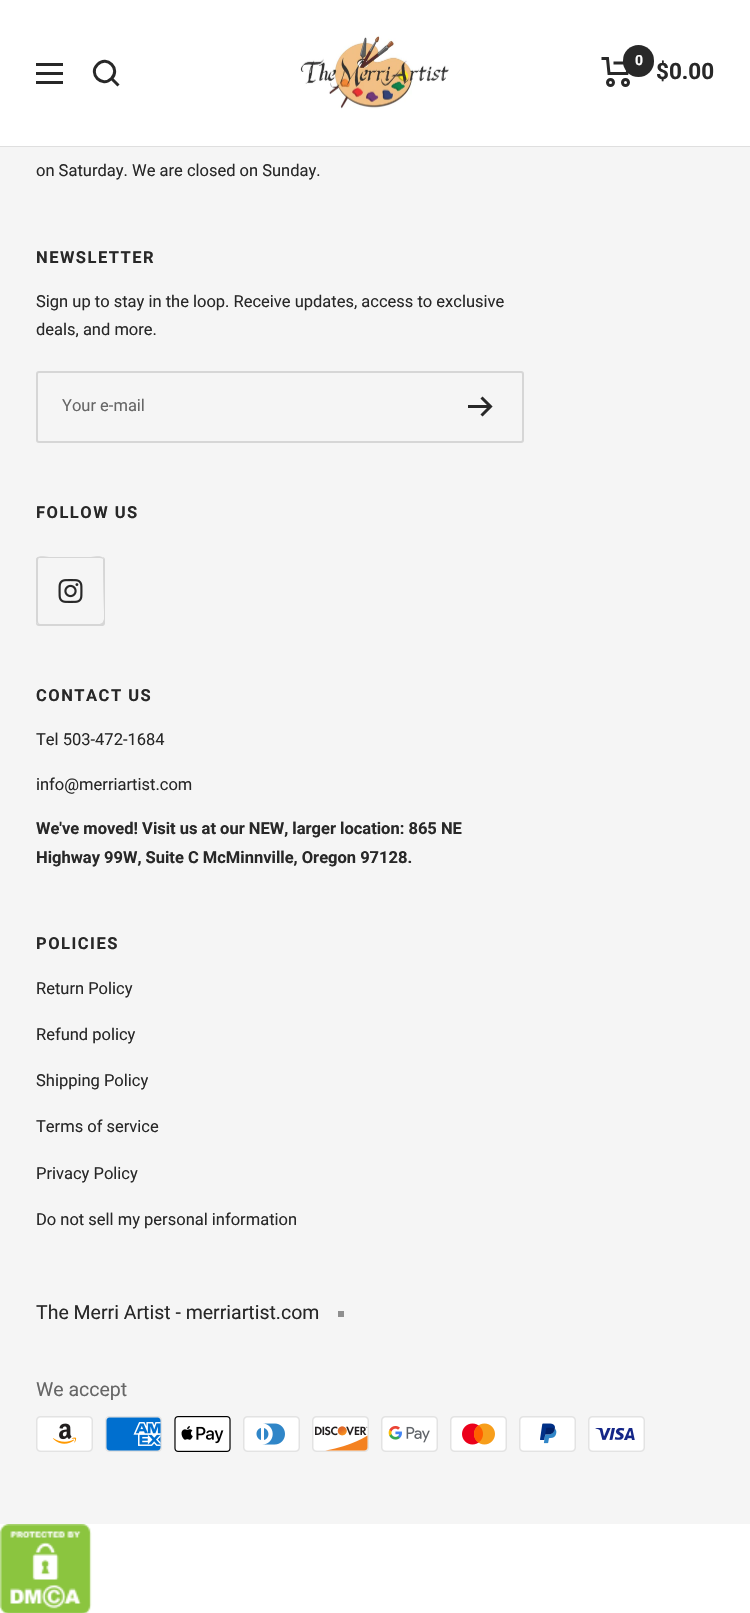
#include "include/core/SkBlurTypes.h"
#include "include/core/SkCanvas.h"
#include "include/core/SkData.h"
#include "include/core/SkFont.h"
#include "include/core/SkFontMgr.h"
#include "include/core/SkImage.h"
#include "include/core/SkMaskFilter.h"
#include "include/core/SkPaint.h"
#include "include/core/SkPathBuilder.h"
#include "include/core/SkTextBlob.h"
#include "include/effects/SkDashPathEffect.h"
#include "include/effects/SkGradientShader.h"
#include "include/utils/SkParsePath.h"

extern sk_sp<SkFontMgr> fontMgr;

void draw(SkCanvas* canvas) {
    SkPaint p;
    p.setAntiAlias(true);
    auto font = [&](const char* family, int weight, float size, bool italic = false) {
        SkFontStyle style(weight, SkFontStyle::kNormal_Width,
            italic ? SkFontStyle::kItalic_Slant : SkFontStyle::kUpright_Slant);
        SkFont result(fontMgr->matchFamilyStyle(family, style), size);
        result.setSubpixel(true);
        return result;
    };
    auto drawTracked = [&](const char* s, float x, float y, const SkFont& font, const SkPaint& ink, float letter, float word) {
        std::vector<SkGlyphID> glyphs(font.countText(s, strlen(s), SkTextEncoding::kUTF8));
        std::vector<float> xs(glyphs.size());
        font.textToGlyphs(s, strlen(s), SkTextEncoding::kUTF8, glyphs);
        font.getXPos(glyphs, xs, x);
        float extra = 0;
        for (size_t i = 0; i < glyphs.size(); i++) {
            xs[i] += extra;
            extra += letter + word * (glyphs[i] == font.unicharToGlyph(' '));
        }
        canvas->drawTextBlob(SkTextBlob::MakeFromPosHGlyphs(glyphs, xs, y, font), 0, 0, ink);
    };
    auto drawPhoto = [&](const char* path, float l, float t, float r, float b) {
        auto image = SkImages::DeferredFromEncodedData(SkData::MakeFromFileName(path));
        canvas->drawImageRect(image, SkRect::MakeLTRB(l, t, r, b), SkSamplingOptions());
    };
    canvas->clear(0xFFFFFFFF);
    p.setColor(0xFFDFDFDF);
    canvas->drawRect(SkRect::MakeLTRB(0, 146, 750, 147), p);
    p.setStyle(SkPaint::kStroke_Style);
    p.setStrokeWidth(3);
    p.setColor(0xFF282828);
    canvas->drawPath(SkPathBuilder().moveTo(36, 64.5f).lineTo(63, 64.5f).moveTo(36, 82.5f).lineTo(63, 82.5f).close().moveTo(36, 73.5f).lineTo(63, 73.5f).close().detach(), p);
    canvas->drawPath(SkPathBuilder().moveTo(111.5f, 78.5f).cubicTo(121, 69, 107, 55, 97.5f, 64.5f).cubicTo(88, 74, 102, 88, 111.5f, 78.5f).close().moveTo(111.5f, 78.5f).lineTo(118.5f, 85.5f).detach(), p);
    drawPhoto("media/1.png", 300, 35, 449, 109);
    canvas->drawPath(SkPathBuilder().moveTo(601.5f, 58.5f).lineTo(607.5f, 58.5f).lineTo(609, 73.5f).lineTo(627, 73.5f).lineTo(630, 63).lineTo(613.5f, 63).detach(), p);
    canvas->drawCircle(610.5f, 82.5f, 3, p);
    canvas->drawCircle(625.5f, 82.5f, 3, p);
    p.setStyle(SkPaint::kFill_Style);
    canvas->drawRoundRect(SkRect::MakeLTRB(623, 45, 654, 77), 15.5f, 15.5f, p);
    auto font1 = font("Roboto", 700, 14);
    p.setColor(0xFFFFFFFF);
    canvas->drawString("0", 635, 65, font1, p);
    auto font2 = font("Roboto", 700, 22.5f);
    p.setColor(0xFF282828);
    canvas->drawString("$0.00", 656, 79, font2, p);
    p.setColor(0xFFF5F5F5);
    canvas->drawRect(SkRect::MakeLTRB(0, 147, 750, 1524), p);
    auto font3 = font("Roboto", 400, 16.5f);
    p.setColor(0xFF282828);
    canvas->drawString("on Saturday. We are closed on Sunday.", 36, 176, font3, p);
    auto font4 = font("Roboto", 700, 16.5f);
    drawTracked("NEWSLETTER", 36, 263, font4, p, 1.5f, 0);
    canvas->drawString("Sign up to stay in the loop. Receive updates, access to exclusive", 36, 307, font3, p);
    canvas->drawString("deals, and more.", 36, 335, font3, p);
    p.setStyle(SkPaint::kStroke_Style);
    p.setStrokeWidth(2);
    p.setColor(0xFFD6D6D6);
    canvas->drawRoundRect(SkRect::MakeLTRB(37, 372, 523, 442), 2, 2, p);
    p.setStyle(SkPaint::kFill_Style);
    p.setColor(0xFF666666);
    canvas->drawString("Your e-mail", 62, 411, font3, p);
    p.setStyle(SkPaint::kStroke_Style);
    p.setStrokeWidth(3);
    p.setColor(0xFF282828);
    canvas->drawPath(SkPathBuilder().moveTo(468, 406.5f).lineTo(490.5f, 406.5f).moveTo(481.5f, 397.5f).lineTo(490.5f, 406.5f).lineTo(481.5f, 415.5f).detach(), p);
    p.setStyle(SkPaint::kFill_Style);
    drawTracked("FOLLOW US", 36, 518, font4, p, 1.5f, 0);
    p.setColor(0xFFD6D6D6);
    canvas->drawPath(SkPathBuilder().moveTo(38, 624).cubicTo(39, 625, 40, 626, 41, 626).lineTo(102, 626).cubicTo(104, 626, 105, 625, 105, 623).lineTo(105, 561).cubicTo(105, 560, 104, 559, 103, 558).lineTo(104, 611).cubicTo(104, 611, 106, 624, 100, 624).close().detach(), p);
    canvas->drawPath(SkPathBuilder().moveTo(36, 621).lineTo(36, 623).cubicTo(36, 625, 37, 626, 39, 626).lineTo(101, 626).cubicTo(103, 626, 104, 625, 104, 623).lineTo(104, 561).lineTo(103, 559).lineTo(104, 611).cubicTo(104, 611, 106, 624, 100, 624).lineTo(38, 624).cubicTo(37, 624, 36, 622, 36, 621).close().detach(), p);
    canvas->drawPath(SkPathBuilder().moveTo(100, 624).lineTo(102, 624).cubicTo(104, 624, 105, 623, 105, 621).lineTo(105, 560).cubicTo(105, 558, 104, 557, 102, 557).cubicTo(103, 558, 104, 558, 104, 560).lineTo(104, 621).cubicTo(104, 623, 102, 624, 100, 624).close().detach(), p);
    canvas->drawPath(SkPathBuilder().moveTo(39, 558).lineTo(100, 558).cubicTo(102, 558, 104, 559, 104, 561).cubicTo(104, 554, 95, 557, 91, 557).lineTo(49, 557).cubicTo(45, 557, 36, 554, 36, 561).cubicTo(36, 559, 37, 558, 39, 558).close().detach(), p);
    canvas->drawPath(SkPathBuilder().moveTo(39, 557).cubicTo(37, 557, 36, 558, 36, 560).lineTo(36, 621).cubicTo(36, 623, 37, 624, 39, 624).lineTo(40, 624).cubicTo(39, 624, 38, 623, 38, 621).lineTo(38, 560).close().detach(), p);
    drawPhoto("media/2.png", 58, 579, 83, 603);
    p.setColor(0xFF282828);
    drawTracked("CONTACT US", 36, 701, font4, p, 1.5f, 0);
    canvas->drawString("Tel 503-472-1684", 36, 745, font3, p);
    canvas->drawString("info@merriartist.com", 36, 790, font3, p);
    canvas->drawString("We've moved! Visit us at our NEW, larger location: 865 NE", 36, 834, font4, p);
    canvas->drawString("Highway 99W, Suite C McMinnville, Oregon 97128.", 36, 863, font4, p);
    drawTracked("POLICIES", 36, 949, font4, p, 1.5f, 0);
    {
        const struct { const char* s; float x, y; } items[] = {
            {"Return Policy", 36, 994},
            {"Refund policy", 36, 1040},
            {"Shipping Policy", 36, 1086},
            {"Terms of service", 36, 1132},
            {"Privacy Policy", 36, 1179},
            {"Do not sell my personal information", 36, 1225},
        };
        for (auto [s, x, y] : items) {
            canvas->drawString(s, x, y, font3, p);
        }
    }
    auto font5 = font("Roboto", 400, 19.5f);
    canvas->drawString("The Merri Artist - merriartist.com", 36, 1319, font5, p);
    p.setColor(0xFF8F8F8F);
    canvas->drawRect(SkRect::MakeLTRB(338, 1311, 344, 1317), p);
    p.setColor(0xFF666666);
    canvas->drawString("We accept", 36, 1396, font5, p);
    drawPhoto("media/3.png", 36, 1416, 93, 1452);
    drawPhoto("media/4.png", 105, 1416, 162, 1452);
    drawPhoto("media/5.png", 174, 1416, 231, 1452);
    drawPhoto("media/6.png", 243, 1416, 300, 1452);
    drawPhoto("media/7.png", 312, 1416, 369, 1452);
    drawPhoto("media/8.png", 381, 1416, 438, 1452);
    drawPhoto("media/9.png", 450, 1416, 507, 1452);
    drawPhoto("media/10.png", 519, 1416, 576, 1452);
    drawPhoto("media/11.png", 588, 1416, 645, 1452);
    drawPhoto("media/12.png", 0, 1524, 92, 1613);
}
